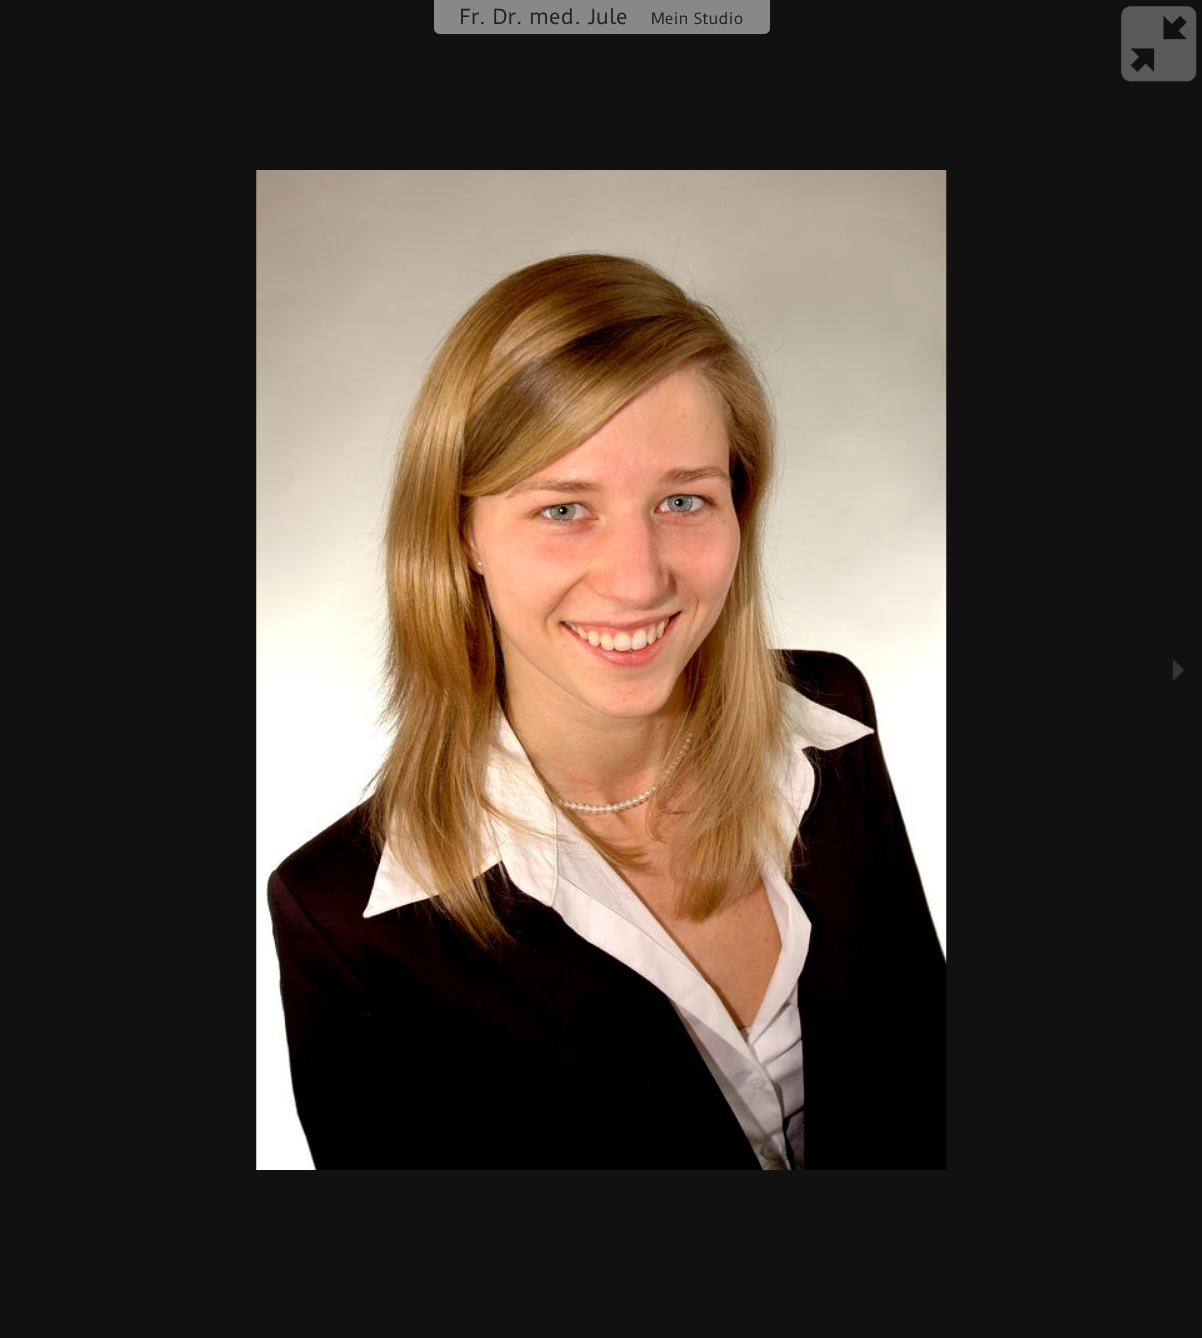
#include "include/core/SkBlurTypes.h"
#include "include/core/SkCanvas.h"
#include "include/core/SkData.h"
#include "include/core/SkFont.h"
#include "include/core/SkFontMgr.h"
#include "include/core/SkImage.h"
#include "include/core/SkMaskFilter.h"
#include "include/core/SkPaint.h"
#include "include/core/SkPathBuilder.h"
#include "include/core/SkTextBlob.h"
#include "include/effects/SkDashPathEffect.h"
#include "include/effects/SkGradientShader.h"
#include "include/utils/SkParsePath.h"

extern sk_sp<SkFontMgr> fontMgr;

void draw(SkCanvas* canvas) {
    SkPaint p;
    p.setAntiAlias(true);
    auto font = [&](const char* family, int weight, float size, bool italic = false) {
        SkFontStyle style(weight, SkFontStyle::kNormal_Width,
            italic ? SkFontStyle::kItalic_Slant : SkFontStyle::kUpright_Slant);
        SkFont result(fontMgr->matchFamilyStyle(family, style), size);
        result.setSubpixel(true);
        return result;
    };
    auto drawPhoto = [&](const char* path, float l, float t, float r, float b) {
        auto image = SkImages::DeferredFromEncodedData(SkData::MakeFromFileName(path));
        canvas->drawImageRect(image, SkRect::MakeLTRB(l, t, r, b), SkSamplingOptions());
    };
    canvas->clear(0xFF111111);
    p.setColor(0xFF888888);
    canvas->drawPath(SkPathBuilder().moveTo(434, 0).lineTo(770, 0).lineTo(770, 28).cubicTo(770, 31.5f, 767.5f, 34, 764, 34).lineTo(440, 34).cubicTo(436.5f, 34, 434, 31.5f, 434, 28).close().detach(), p);
    auto font1 = font("Duru Sans", 400, 20);
    p.setColor(0xFF202020);
    canvas->drawString("Fr. Dr. med. Jule", 459, 24, font1, p);
    auto font2 = font("Duru Sans", 400, 15);
    canvas->drawString("Mein Studio", 651, 24, font2, p);
    drawPhoto("media/1.png", 1121, 6, 1197, 82);
    drawPhoto("media/2.png", 256, 170, 947, 1170);
    drawPhoto("media/3.png", 1172, 660, 1184, 680);
}
